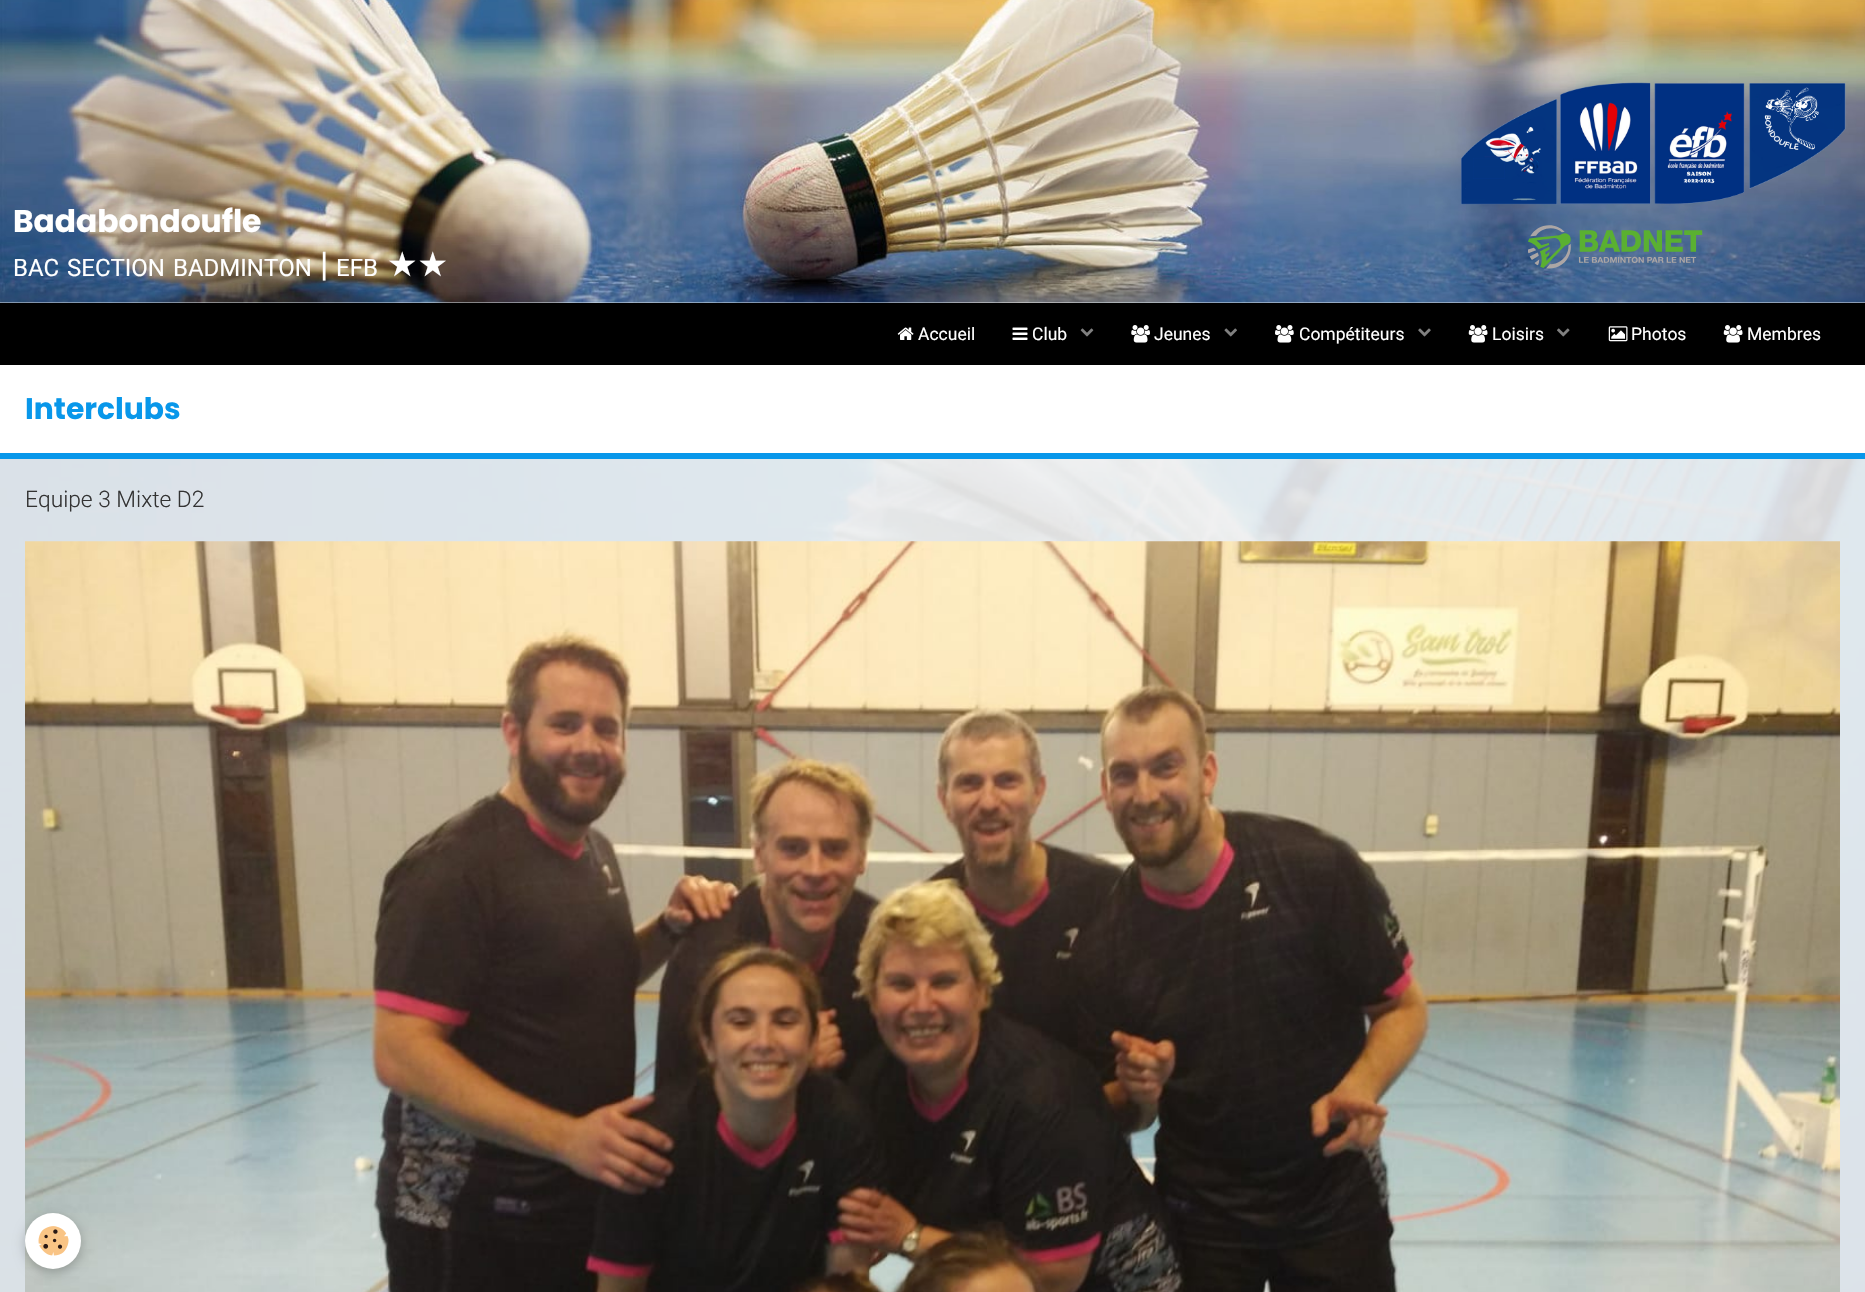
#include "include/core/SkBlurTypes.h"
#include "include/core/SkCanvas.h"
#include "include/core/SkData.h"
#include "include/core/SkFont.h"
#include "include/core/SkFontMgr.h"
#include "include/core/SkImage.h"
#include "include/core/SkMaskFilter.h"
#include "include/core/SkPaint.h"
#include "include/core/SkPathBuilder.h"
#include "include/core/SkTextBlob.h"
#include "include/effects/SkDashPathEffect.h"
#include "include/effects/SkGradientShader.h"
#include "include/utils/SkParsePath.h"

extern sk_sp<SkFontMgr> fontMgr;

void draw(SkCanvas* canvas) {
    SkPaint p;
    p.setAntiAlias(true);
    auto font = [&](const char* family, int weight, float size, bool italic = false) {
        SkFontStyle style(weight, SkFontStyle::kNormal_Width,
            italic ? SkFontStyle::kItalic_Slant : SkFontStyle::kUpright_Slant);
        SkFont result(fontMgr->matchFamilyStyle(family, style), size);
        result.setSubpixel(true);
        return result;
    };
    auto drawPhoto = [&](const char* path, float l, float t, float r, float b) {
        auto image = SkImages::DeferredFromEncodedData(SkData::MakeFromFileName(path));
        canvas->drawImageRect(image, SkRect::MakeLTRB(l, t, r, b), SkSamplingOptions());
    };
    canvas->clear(0xFFEEEEEE);
    drawPhoto("media/1.png", 0, 302, 1865, 1292);
    drawPhoto("media/2.png", 0, 0, 1865, 303);
    auto font1 = font("Poppins", 700, 31.25f);
    p.setColor(0xFFFFFFFF);
    canvas->drawString("Badabondoufle", 13, 232, font1, p);
    auto font2 = font("Roboto", 400, 24);
    {
        const struct { const char* s; float x, y; } items[] = {
            {"BAC", 13, 276},
            {"SECTION", 67, 276},
            {"BADMINTON", 173, 276},
        };
        for (auto [s, x, y] : items) {
            canvas->drawString(s, x, y, font2, p);
        }
    }
    auto font3 = font("Roboto", 400, 34);
    canvas->drawString("|", 320, 276, font3, p);
    canvas->drawString("EFB", 336, 276, font2, p);
    auto font4 = font("DejaVu Sans", 400, 34);
    canvas->drawString("★★", 387, 276, font4, p);
    drawPhoto("media/3.png", 1461, 99, 1557, 205);
    drawPhoto("media/4.png", 1560, 82, 1651, 204);
    drawPhoto("media/5.png", 1654, 83, 1745, 204);
    drawPhoto("media/6.png", 1749, 83, 1846, 189);
    drawPhoto("media/7.png", 1528, 225, 1703, 269);
    p.setColor(0xFF000000);
    canvas->drawRect(SkRect::MakeLTRB(0, 303, 1865, 365), p);
    drawPhoto("media/8.png", 897, 327, 914, 340);
    auto font5 = font("Roboto", 400, 17.5f);
    p.setColor(0xFFFFFFFF);
    canvas->drawString("Accueil", 918, 340, font5, p);
    drawPhoto("media/9.png", 1012, 327, 1028, 340);
    canvas->drawString("Club", 1032, 340, font5, p);
    drawPhoto("media/10.png", 1080, 328, 1094, 337);
    drawPhoto("media/11.png", 1131, 325, 1150, 343);
    canvas->drawString("Jeunes", 1154, 340, font5, p);
    drawPhoto("media/12.png", 1224, 328, 1237, 337);
    drawPhoto("media/13.png", 1275, 325, 1294, 343);
    canvas->drawString("Compétiteurs", 1299, 340, font5, p);
    drawPhoto("media/14.png", 1418, 328, 1431, 337);
    drawPhoto("media/15.png", 1468, 325, 1488, 343);
    canvas->drawString("Loisirs", 1492, 340, font5, p);
    drawPhoto("media/16.png", 1557, 328, 1570, 337);
    drawPhoto("media/17.png", 1608, 326, 1628, 342);
    canvas->drawString("Photos", 1631, 340, font5, p);
    drawPhoto("media/15.png", 1723, 325, 1743, 343);
    canvas->drawString("Membres", 1747, 340, font5, p);
    canvas->drawRect(SkRect::MakeLTRB(0, 365, 1865, 453), p);
    p.setColor(0xFF0897EA);
    canvas->drawRect(SkRect::MakeLTRB(0, 453, 1865, 459), p);
    auto font6 = font("Poppins", 700, 29.75f);
    canvas->drawString("Interclubs", 25, 419, font6, p);
    auto font7 = font("Roboto", 300, 22.75f);
    p.setColor(0xFF333333);
    canvas->drawString("Equipe 3 Mixte D2", 25, 507, font7, p);
    drawPhoto("media/18.png", 25, 541, 1840, 1292);
    p.setColor(0x3D000000);
    p.setMaskFilter(SkMaskFilter::MakeBlur(kNormal_SkBlurStyle, 6));
    canvas->drawRoundRect(SkRect::MakeLTRB(25, 1216, 81, 1273), 28, 28, p);
    p.setMaskFilter(nullptr);
    p.setColor(0xFFFFFFFF);
    canvas->drawCircle(53, 1241, 28, p);
    drawPhoto("media/19.png", 38, 1226, 69, 1256);
}
